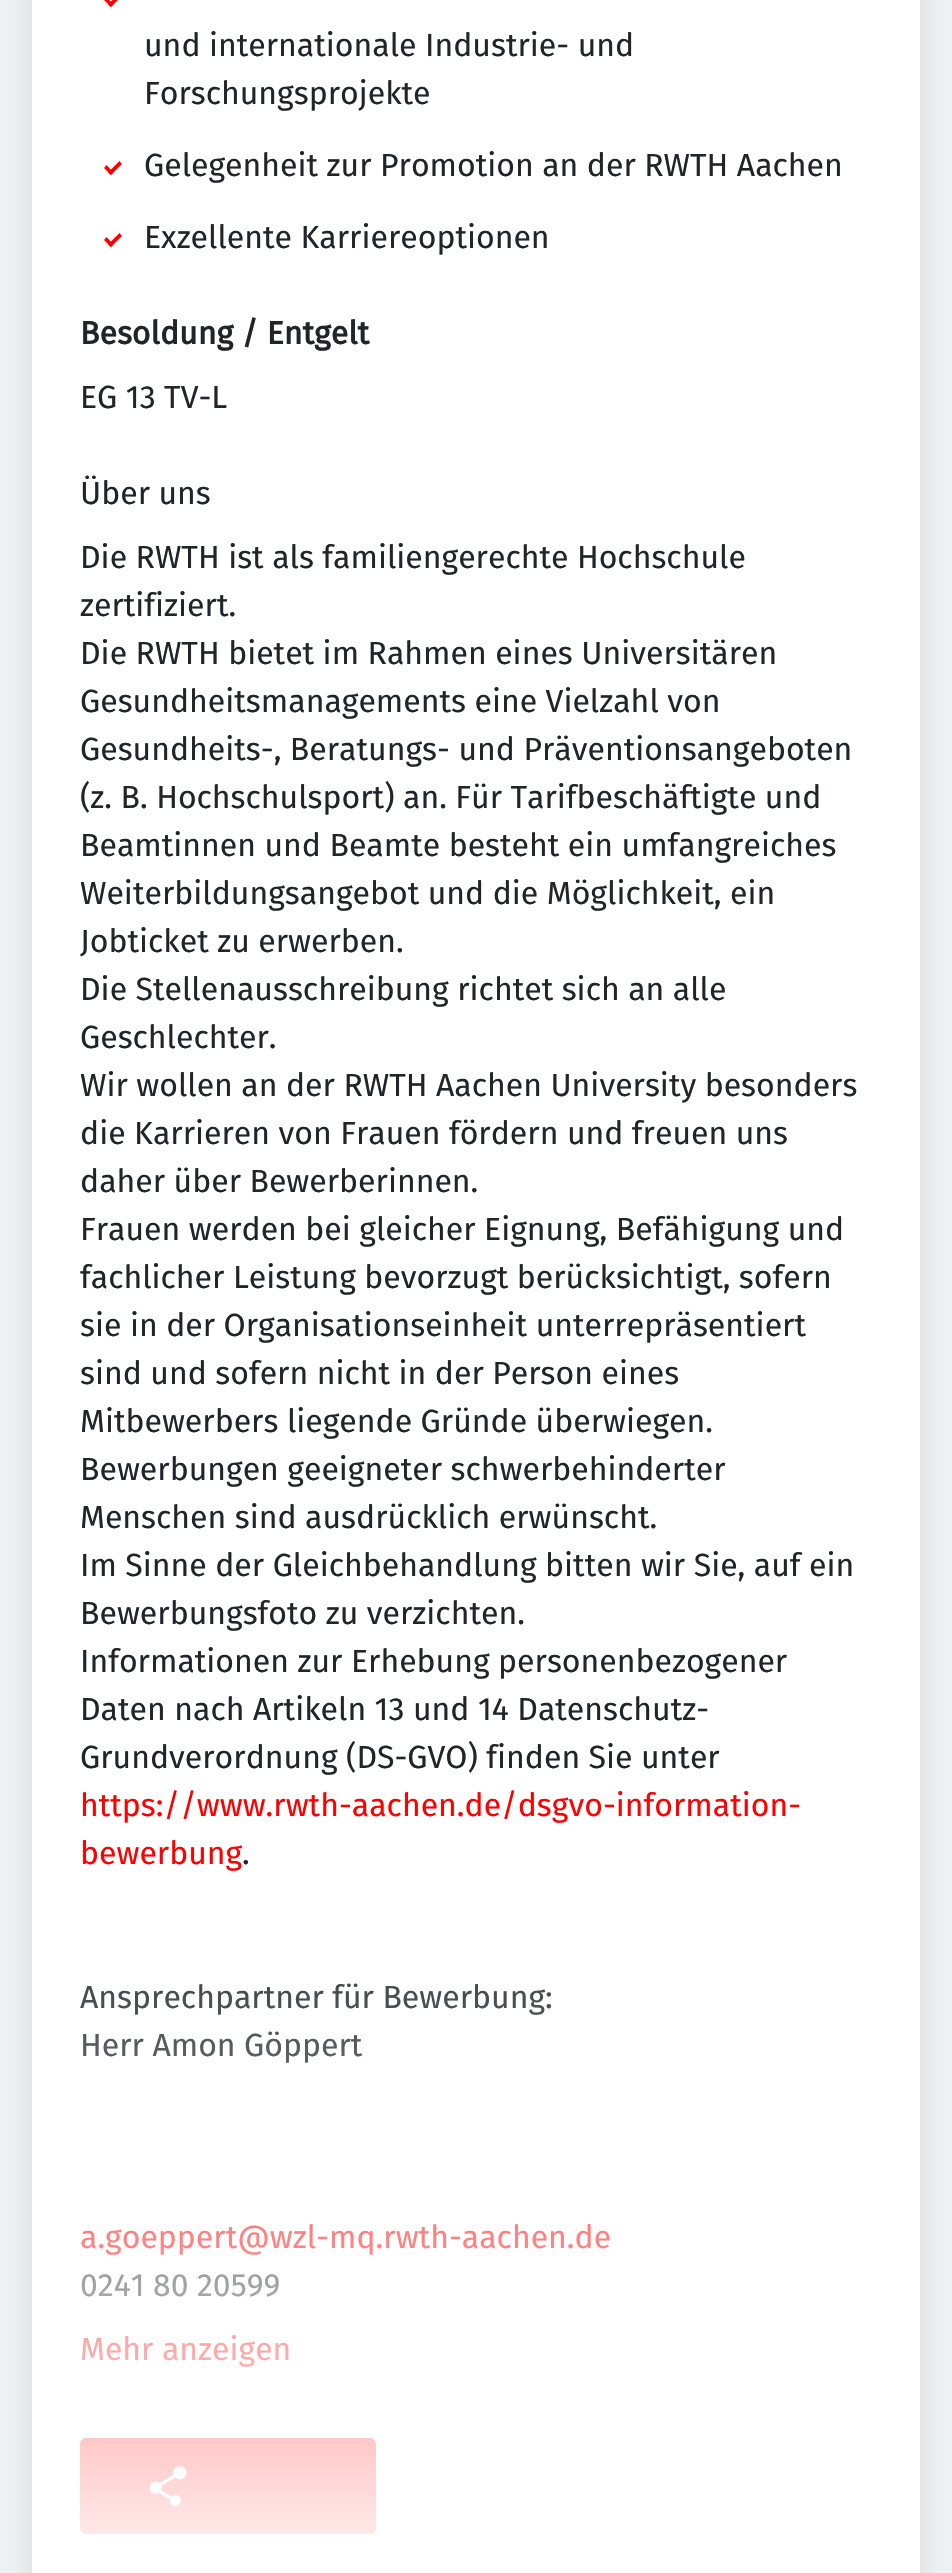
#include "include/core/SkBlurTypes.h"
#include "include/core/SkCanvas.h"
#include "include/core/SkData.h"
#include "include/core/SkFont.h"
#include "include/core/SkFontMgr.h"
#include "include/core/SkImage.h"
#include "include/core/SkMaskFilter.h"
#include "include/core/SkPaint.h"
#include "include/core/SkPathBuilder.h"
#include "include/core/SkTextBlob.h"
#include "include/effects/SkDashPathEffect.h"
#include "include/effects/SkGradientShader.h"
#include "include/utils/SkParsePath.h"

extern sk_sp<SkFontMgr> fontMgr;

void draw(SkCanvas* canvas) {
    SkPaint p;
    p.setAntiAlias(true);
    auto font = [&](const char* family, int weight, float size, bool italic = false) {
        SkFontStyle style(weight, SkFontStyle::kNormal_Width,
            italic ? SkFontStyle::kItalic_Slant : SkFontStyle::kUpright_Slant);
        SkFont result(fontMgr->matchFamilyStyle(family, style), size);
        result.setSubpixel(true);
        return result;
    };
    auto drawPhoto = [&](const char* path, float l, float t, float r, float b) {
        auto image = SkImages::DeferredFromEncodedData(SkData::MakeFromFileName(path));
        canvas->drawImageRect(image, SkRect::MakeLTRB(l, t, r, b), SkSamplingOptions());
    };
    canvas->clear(0xFFEFF2F4);
    p.setColor(0x1A000000);
    p.setMaskFilter(SkMaskFilter::MakeBlur(kNormal_SkBlurStyle, 15));
    canvas->drawRoundRect(SkRect::MakeLTRB(32, -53, 920, 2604), 8, 8, p);
    p.setMaskFilter(nullptr);
    p.setColor(0xFFFFFFFF);
    canvas->drawRect(SkRect::MakeLTRB(32, 0, 920, 2573), p);
    p.setColor(0xFFFF0000);
    canvas->drawPath(SkPathBuilder().moveTo(119.5f, -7).lineTo(122, -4).lineTo(111, 7).lineTo(108, 4.5f).close().detach(), p);
    canvas->drawPath(SkPathBuilder().moveTo(106.5f, -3).lineTo(113.5f, 4.5f).lineTo(111, 7).lineTo(104, 0).close().detach(), p);
    auto font1 = font("Fira Sans", 400, 32);
    p.setColor(0xFF212529);
    canvas->drawString("und internationale Industrie- und", 144, 56, font1, p);
    canvas->drawString("Forschungsprojekte", 144, 104, font1, p);
    p.setColor(0xFFFF0000);
    canvas->drawPath(SkPathBuilder().moveTo(119.5f, 161).lineTo(122, 164).lineTo(111, 175).lineTo(108, 172.5f).close().detach(), p);
    canvas->drawPath(SkPathBuilder().moveTo(106.5f, 165).lineTo(113.5f, 172.5f).lineTo(111, 175).lineTo(104, 168).close().detach(), p);
    p.setColor(0xFF212529);
    canvas->drawString("Gelegenheit zur Promotion an der RWTH Aachen", 144, 176, font1, p);
    p.setColor(0xFFFF0000);
    canvas->drawPath(SkPathBuilder().moveTo(119.5f, 233).lineTo(122, 236).lineTo(111, 247).lineTo(108, 244.5f).close().detach(), p);
    canvas->drawPath(SkPathBuilder().moveTo(106.5f, 237).lineTo(113.5f, 244.5f).lineTo(111, 247).lineTo(104, 240).close().detach(), p);
    p.setColor(0xFF212529);
    canvas->drawString("Exzellente Karriereoptionen", 144, 248, font1, p);
    auto font2 = font("Fira Sans", 700, 32);
    canvas->drawString("Besoldung / Entgelt", 80, 344, font2, p);
    {
        const struct { const char* s; float x, y; } items[] = {
            {"EG 13 TV-L", 80, 408},
            {"Über uns", 80, 504},
            {"Die RWTH ist als familiengerechte Hochschule", 80, 568},
            {"zertifiziert.", 80, 616},
            {"Die RWTH bietet im Rahmen eines Universitären", 80, 664},
            {"Gesundheitsmanagements eine Vielzahl von", 80, 712},
            {"Gesundheits-, Beratungs- und Präventionsangeboten", 80, 760},
            {"(z. B. Hochschulsport) an. Für Tarifbeschäftigte und", 80, 808},
            {"Beamtinnen und Beamte besteht ein umfangreiches", 80, 856},
            {"Weiterbildungsangebot und die Möglichkeit, ein", 80, 904},
            {"Jobticket zu erwerben.", 80, 952},
            {"Die Stellenausschreibung richtet sich an alle", 80, 1000},
            {"Geschlechter.", 80, 1048},
            {"Wir wollen an der RWTH Aachen University besonders", 80, 1096},
            {"die Karrieren von Frauen fördern und freuen uns", 80, 1144},
            {"daher über Bewerberinnen.", 80, 1192},
            {"Frauen werden bei gleicher Eignung, Befähigung und", 80, 1240},
            {"fachlicher Leistung bevorzugt berücksichtigt, sofern", 80, 1288},
            {"sie in der Organisationseinheit unterrepräsentiert", 80, 1336},
            {"sind und sofern nicht in der Person eines", 80, 1384},
            {"Mitbewerbers liegende Gründe überwiegen.", 80, 1432},
            {"Bewerbungen geeigneter schwerbehinderter", 80, 1480},
            {"Menschen sind ausdrücklich erwünscht.", 80, 1528},
            {"Im Sinne der Gleichbehandlung bitten wir Sie, auf ein", 80, 1576},
            {"Bewerbungsfoto zu verzichten.", 80, 1624},
            {"Informationen zur Erhebung personenbezogener", 80, 1672},
            {"Daten nach Artikeln 13 und 14 Datenschutz-", 80, 1720},
            {"Grundverordnung (DS-GVO) finden Sie unter", 80, 1768},
        };
        for (auto [s, x, y] : items) {
            canvas->drawString(s, x, y, font1, p);
        }
    }
    p.setColor(0xFFFF0000);
    canvas->drawString("https://www.rwth-aachen.de/dsgvo-information-", 80, 1816, font1, p);
    canvas->drawString("bewerbung", 80, 1864, font1, p);
    p.setColor(0xFF212529);
    {
        const struct { const char* s; float x, y; } items[] = {
            {".", 242, 1864},
            {"Ansprechpartner für Bewerbung:", 80, 2008},
            {"Herr Amon Göppert", 80, 2056},
        };
        for (auto [s, x, y] : items) {
            canvas->drawString(s, x, y, font1, p);
        }
    }
    p.setColor(0xFFFF0000);
    canvas->drawString("a.goeppert@wzl-mq.rwth-aachen.de", 80, 2248, font1, p);
    p.setColor(0xFF212529);
    canvas->drawString("0241 80 20599", 80, 2296, font1, p);
    p.setColor(0xFFFF0000);
    canvas->drawString("Mehr anzeigen", 80, 2360, font1, p);
    canvas->drawRoundRect(SkRect::MakeLTRB(82, 2440, 374, 2532), 4, 4, p);
    p.setStyle(SkPaint::kStroke_Style);
    p.setStrokeWidth(4);
    canvas->drawRoundRect(SkRect::MakeLTRB(82, 2440, 374, 2532), 4, 4, p);
    drawPhoto("media/1.png", 149, 2466, 187, 2506);
    p.setStyle(SkPaint::kFill_Style);
    {
        const SkColor colors[] = {0x00FFFFFF, 0xFFFFFFFF};
        const float stops[] = {0, 1};
        const SkPoint ends[] = {{476, 1864}, {476, 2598}};
        p.setShader(SkGradientShader::MakeLinear(ends, colors, stops, 2, SkTileMode::kClamp));
        p.setAlpha(255);
    }
    canvas->drawRect(SkRect::MakeLTRB(80, 1983, 610, 2534), p);
}
